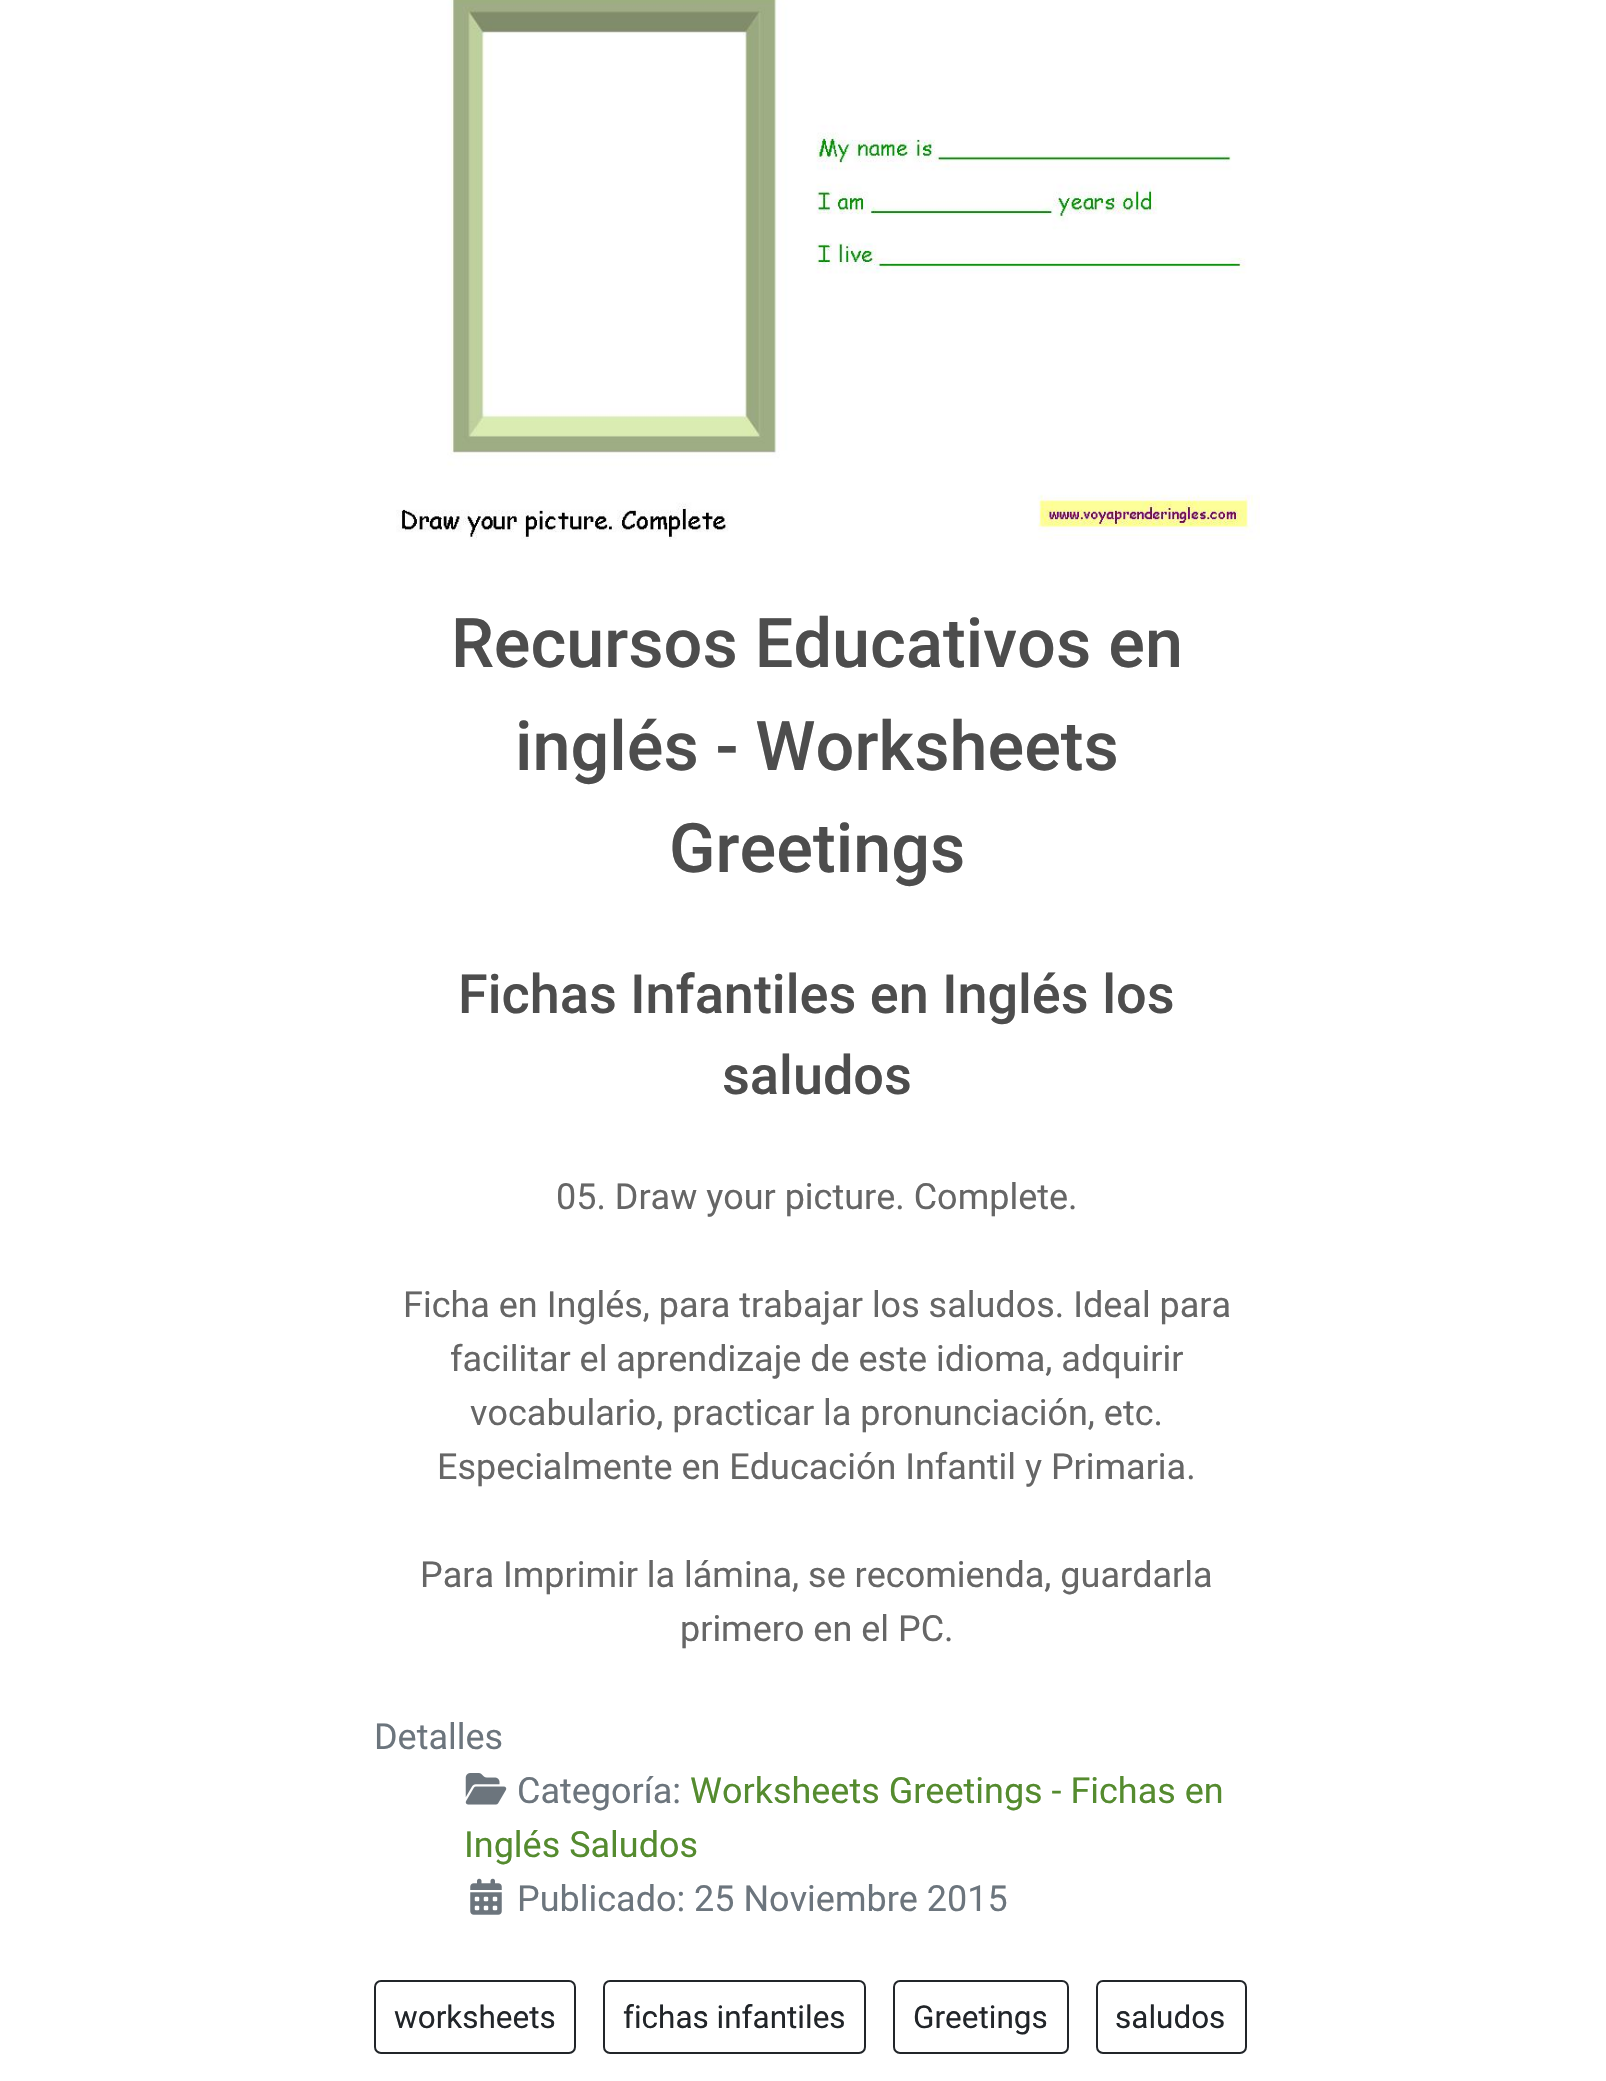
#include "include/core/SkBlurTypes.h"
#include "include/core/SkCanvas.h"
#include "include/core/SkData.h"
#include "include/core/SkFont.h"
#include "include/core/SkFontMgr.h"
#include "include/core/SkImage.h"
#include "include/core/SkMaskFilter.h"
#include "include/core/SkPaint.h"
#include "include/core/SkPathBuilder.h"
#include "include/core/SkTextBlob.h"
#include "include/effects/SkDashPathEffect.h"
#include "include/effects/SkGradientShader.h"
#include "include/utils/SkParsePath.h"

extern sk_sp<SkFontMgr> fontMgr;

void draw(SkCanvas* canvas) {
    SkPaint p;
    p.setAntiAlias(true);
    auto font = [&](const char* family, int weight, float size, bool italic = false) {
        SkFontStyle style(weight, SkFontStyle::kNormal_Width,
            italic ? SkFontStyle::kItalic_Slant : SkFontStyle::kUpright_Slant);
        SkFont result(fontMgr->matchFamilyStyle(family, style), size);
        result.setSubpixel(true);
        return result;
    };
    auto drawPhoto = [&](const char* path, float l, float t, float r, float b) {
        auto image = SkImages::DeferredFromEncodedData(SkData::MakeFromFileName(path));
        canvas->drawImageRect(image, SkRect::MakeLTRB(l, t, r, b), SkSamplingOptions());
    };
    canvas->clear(0xFFFFFFFF);
    drawPhoto("media/1.png", 396, 0, 1260, 540);
    auto font1 = font("Roboto", 500, 68.4f);
    p.setColor(0xFF4D4D4D);
    {
        const struct { const char* s; float x, y; } items[] = {
            {"Recursos Educativos en", 451, 667},
            {"inglés - Worksheets", 515, 770},
            {"Greetings", 669, 872},
        };
        for (auto [s, x, y] : items) {
            canvas->drawString(s, x, y, font1, p);
        }
    }
    auto font2 = font("Roboto", 500, 54);
    canvas->drawString("Fichas Infantiles en Inglés los", 458, 1013, font2, p);
    canvas->drawString("saludos", 722, 1094, font2, p);
    auto font3 = font("Roboto", 400, 36);
    p.setColor(0xFF666666);
    {
        const struct { const char* s; float x, y; } items[] = {
            {"05. Draw your picture. Complete.", 556, 1209},
            {"Ficha en Inglés, para trabajar los saludos. Ideal para", 403, 1317},
            {"facilitar el aprendizaje de este idioma, adquirir", 450, 1371},
            {"vocabulario, practicar la pronunciación, etc.", 470, 1425},
            {"Especialmente en Educación Infantil y Primaria.", 437, 1479},
            {"Para Imprimir la lámina, se recomienda, guardarla", 420, 1587},
            {"primero en el PC.", 680, 1641},
        };
        for (auto [s, x, y] : items) {
            canvas->drawString(s, x, y, font3, p);
        }
    }
    p.setColor(0xFF6C757D);
    canvas->drawString("Detalles", 374, 1749, font3, p);
    drawPhoto("media/2.png", 465, 1773, 507, 1805);
    canvas->drawString("Categoría:", 517, 1803, font3, p);
    p.setColor(0xFF558B2F);
    canvas->drawString("Worksheets Greetings - Fichas en", 690, 1803, font3, p);
    canvas->drawString("Inglés Saludos", 464, 1857, font3, p);
    drawPhoto("media/3.png", 470, 1878, 502, 1915);
    p.setColor(0xFF6C757D);
    canvas->drawString("Publicado: 25 Noviembre 2015", 517, 1911, font3, p);
    p.setStyle(SkPaint::kStroke_Style);
    p.setStrokeWidth(2);
    p.setColor(0xFF212529);
    canvas->drawRoundRect(SkRect::MakeLTRB(375, 1981, 575, 2053), 6, 6, p);
    auto font4 = font("Roboto", 400, 31.5f);
    p.setStyle(SkPaint::kFill_Style);
    canvas->drawString("worksheets", 394, 2028, font4, p);
    p.setStyle(SkPaint::kStroke_Style);
    canvas->drawRoundRect(SkRect::MakeLTRB(604, 1981, 865, 2053), 6, 6, p);
    p.setStyle(SkPaint::kFill_Style);
    canvas->drawString("fichas infantiles", 623, 2028, font4, p);
    p.setStyle(SkPaint::kStroke_Style);
    canvas->drawRoundRect(SkRect::MakeLTRB(894, 1981, 1068, 2053), 6, 6, p);
    p.setStyle(SkPaint::kFill_Style);
    canvas->drawString("Greetings", 913, 2028, font4, p);
    p.setStyle(SkPaint::kStroke_Style);
    canvas->drawRoundRect(SkRect::MakeLTRB(1097, 1981, 1246, 2053), 6, 6, p);
    p.setStyle(SkPaint::kFill_Style);
    canvas->drawString("saludos", 1115, 2028, font4, p);
}
